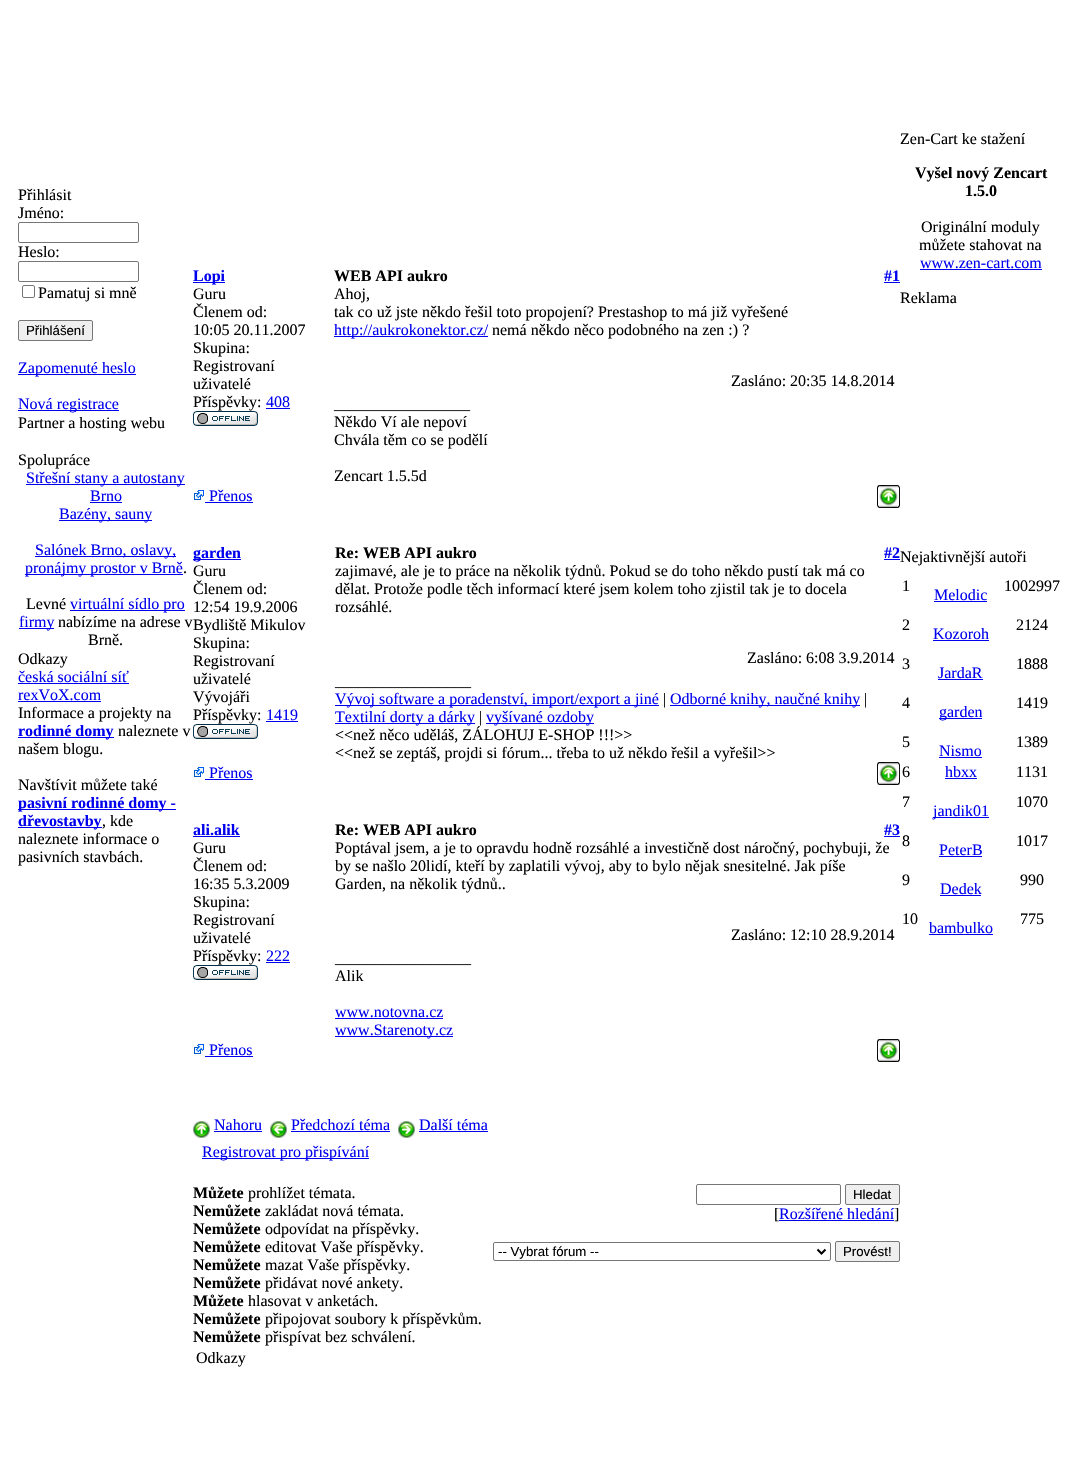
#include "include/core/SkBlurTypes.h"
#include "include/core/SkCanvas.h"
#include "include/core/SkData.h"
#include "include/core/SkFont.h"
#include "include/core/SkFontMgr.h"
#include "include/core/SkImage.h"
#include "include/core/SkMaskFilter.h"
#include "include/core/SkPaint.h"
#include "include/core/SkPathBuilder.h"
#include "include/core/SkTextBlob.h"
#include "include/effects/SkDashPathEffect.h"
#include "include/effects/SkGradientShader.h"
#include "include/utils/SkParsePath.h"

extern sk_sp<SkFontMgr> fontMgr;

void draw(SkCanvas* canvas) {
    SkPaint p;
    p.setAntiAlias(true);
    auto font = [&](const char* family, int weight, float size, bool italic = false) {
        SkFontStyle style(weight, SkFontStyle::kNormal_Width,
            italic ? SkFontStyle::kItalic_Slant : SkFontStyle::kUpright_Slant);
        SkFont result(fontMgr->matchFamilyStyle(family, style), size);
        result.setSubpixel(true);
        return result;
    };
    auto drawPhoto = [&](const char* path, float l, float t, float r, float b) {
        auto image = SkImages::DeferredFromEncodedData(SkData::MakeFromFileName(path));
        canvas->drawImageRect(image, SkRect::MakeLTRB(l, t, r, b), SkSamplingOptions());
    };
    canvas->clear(0xFFFFFFFF);
    auto font1 = font("Liberation Serif", 400, 16);
    p.setColor(0xFF000000);
    canvas->drawString("Přihlásit", 18, 200, font1, p);
    canvas->drawString("Jméno:", 18, 218, font1, p);
    p.setStyle(SkPaint::kStroke_Style);
    p.setStrokeWidth(1);
    p.setColor(0xFF767676);
    canvas->drawRoundRect(SkRect::MakeLTRB(18.5f, 222.5f, 138.5f, 242.5f), 1.5f, 1.5f, p);
    p.setStyle(SkPaint::kFill_Style);
    p.setColor(0xFF000000);
    canvas->drawString("Heslo:", 18, 257, font1, p);
    p.setStyle(SkPaint::kStroke_Style);
    p.setColor(0xFF767676);
    canvas->drawRoundRect(SkRect::MakeLTRB(18.5f, 261.5f, 138.5f, 281.5f), 1.5f, 1.5f, p);
    canvas->drawRoundRect(SkRect::MakeLTRB(22.5f, 285.5f, 34.5f, 297.5f), 1.5f, 1.5f, p);
    p.setStyle(SkPaint::kFill_Style);
    p.setColor(0xFF000000);
    canvas->drawString("Pamatuj si mně", 38, 298, font1, p);
    p.setColor(0xFFEFEFEF);
    canvas->drawRoundRect(SkRect::MakeLTRB(18.5f, 320.5f, 92.5f, 340.5f), 1.5f, 1.5f, p);
    p.setStyle(SkPaint::kStroke_Style);
    p.setColor(0xFF767676);
    canvas->drawRoundRect(SkRect::MakeLTRB(18.5f, 320.5f, 92.5f, 340.5f), 1.5f, 1.5f, p);
    auto font2 = font("Liberation Sans", 400, 13.25f);
    p.setStyle(SkPaint::kFill_Style);
    p.setColor(0xFF000000);
    canvas->drawString("Přihlášení", 26, 335, font2, p);
    p.setColor(0xFF0000EE);
    canvas->drawRect(SkRect::MakeLTRB(18, 374, 136, 375), p);
    canvas->drawString("Zapomenuté heslo", 18, 373, font1, p);
    canvas->drawRect(SkRect::MakeLTRB(18, 410, 119, 411), p);
    canvas->drawString("Nová registrace", 18, 409, font1, p);
    p.setColor(0xFF000000);
    canvas->drawString("Partner a hosting webu", 18, 428, font1, p);
    canvas->drawString("Spolupráce", 18, 465, font1, p);
    p.setColor(0xFF0000EE);
    canvas->drawRect(SkRect::MakeLTRB(26, 484, 185, 485), p);
    canvas->drawString("Střešní stany a autostany", 26, 483, font1, p);
    canvas->drawString("Brno", 90, 501, font1, p);
    canvas->drawRect(SkRect::MakeLTRB(90, 502, 122, 503), p);
    canvas->drawRect(SkRect::MakeLTRB(59, 520, 152, 521), p);
    canvas->drawString("Bazény, sauny", 59, 519, font1, p);
    canvas->drawRect(SkRect::MakeLTRB(35, 556, 176, 557), p);
    canvas->drawString("Salónek Brno, oslavy,", 35, 555, font1, p);
    canvas->drawRect(SkRect::MakeLTRB(25, 574, 183, 575), p);
    canvas->drawString("pronájmy prostor v Brně", 25, 573, font1, p);
    p.setColor(0xFF000000);
    canvas->drawString(".", 183, 573, font1, p);
    canvas->drawString("Levné", 26, 609, font1, p);
    p.setColor(0xFF0000EE);
    canvas->drawRect(SkRect::MakeLTRB(70, 610, 185, 611), p);
    canvas->drawString("virtuální sídlo pro", 70, 609, font1, p);
    canvas->drawRect(SkRect::MakeLTRB(19, 628, 54, 629), p);
    canvas->drawString("firmy", 19, 627, font1, p);
    p.setColor(0xFF000000);
    {
        const struct { const char* s; float x, y; } items[] = {
            {"nabízíme na adrese v", 58, 627},
            {"Brně.", 88, 645},
            {"Odkazy", 18, 664},
        };
        for (auto [s, x, y] : items) {
            canvas->drawString(s, x, y, font1, p);
        }
    }
    p.setColor(0xFF0000EE);
    canvas->drawString("česká sociální síť", 18, 682, font1, p);
    canvas->drawRect(SkRect::MakeLTRB(18, 683, 129, 684), p);
    canvas->drawString("rexVoX.com", 18, 700, font1, p);
    canvas->drawRect(SkRect::MakeLTRB(18, 701, 101, 702), p);
    p.setColor(0xFF000000);
    canvas->drawString("Informace a projekty na", 18, 718, font1, p);
    p.setColor(0xFF0000EE);
    canvas->drawRect(SkRect::MakeLTRB(18, 737, 114, 738), p);
    auto font3 = font("Liberation Serif", 700, 16);
    canvas->drawString("rodinné domy", 18, 736, font3, p);
    p.setColor(0xFF000000);
    {
        const struct { const char* s; float x, y; } items[] = {
            {"naleznete v", 118, 736},
            {"našem blogu.", 18, 754},
            {"Navštívit můžete také", 18, 790},
        };
        for (auto [s, x, y] : items) {
            canvas->drawString(s, x, y, font1, p);
        }
    }
    p.setColor(0xFF0000EE);
    canvas->drawRect(SkRect::MakeLTRB(18, 809, 176, 810), p);
    canvas->drawString("pasivní rodinné domy -", 18, 808, font3, p);
    canvas->drawRect(SkRect::MakeLTRB(18, 827, 102, 828), p);
    canvas->drawString("dřevostavby", 18, 826, font3, p);
    p.setColor(0xFF000000);
    {
        const struct { const char* s; float x, y; } items[] = {
            {", kde", 102, 826},
            {"naleznete informace o", 18, 844},
            {"pasivních stavbách.", 18, 862},
        };
        for (auto [s, x, y] : items) {
            canvas->drawString(s, x, y, font1, p);
        }
    }
    p.setColor(0xFF0000EE);
    canvas->drawRect(SkRect::MakeLTRB(193, 282, 225, 283), p);
    canvas->drawString("Lopi", 193, 281, font3, p);
    p.setColor(0xFF000000);
    canvas->drawString("WEB API aukro", 334, 281, font3, p);
    p.setColor(0xFF0000EE);
    canvas->drawString("#1", 884, 281, font3, p);
    canvas->drawRect(SkRect::MakeLTRB(884, 282, 900, 283), p);
    p.setColor(0xFF000000);
    {
        const struct { const char* s; float x, y; } items[] = {
            {"Guru", 193, 299},
            {"Členem od:", 193, 317},
            {"10:05 20.11.2007", 193, 335},
            {"Skupina:", 193, 353},
            {"Registrovaní", 193, 371},
            {"uživatelé", 193, 389},
            {"Příspěvky:", 193, 407},
        };
        for (auto [s, x, y] : items) {
            canvas->drawString(s, x, y, font1, p);
        }
    }
    p.setColor(0xFF0000EE);
    canvas->drawString("408", 266, 407, font1, p);
    canvas->drawRect(SkRect::MakeLTRB(266, 408, 290, 409), p);
    drawPhoto("media/1.png", 193, 411, 258, 426);
    p.setColor(0xFF000000);
    canvas->drawString("Ahoj,", 334, 299, font1, p);
    canvas->drawString("tak co už jste někdo řešil toto propojení? Prestashop to má již vyřešené", 334, 317, font1, p);
    p.setColor(0xFF0000EE);
    canvas->drawRect(SkRect::MakeLTRB(334, 336, 488, 337), p);
    canvas->drawString("http://aukrokonektor.cz/", 334, 335, font1, p);
    p.setColor(0xFF000000);
    {
        const struct { const char* s; float x, y; } items[] = {
            {"nemá někdo něco podobného na zen :) ?", 492, 335},
            {"Zasláno: 20:35 14.8.2014", 731, 386},
            {"_________________", 334, 409},
            {"Někdo Ví ale nepoví", 334, 427},
            {"Chvála těm co se podělí", 334, 445},
            {"Zencart 1.5.5d", 334, 481},
        };
        for (auto [s, x, y] : items) {
            canvas->drawString(s, x, y, font1, p);
        }
    }
    drawPhoto("media/2.png", 194, 490, 204, 500);
    p.setColor(0xFF0000EE);
    canvas->drawString("Přenos", 209, 501, font1, p);
    canvas->drawRect(SkRect::MakeLTRB(205, 502, 253, 503), p);
    drawPhoto("media/3.png", 877, 485, 900, 508);
    canvas->drawRect(SkRect::MakeLTRB(193, 559, 241, 560), p);
    canvas->drawString("garden", 193, 558, font3, p);
    p.setColor(0xFF000000);
    canvas->drawString("Re: WEB API aukro", 335, 558, font3, p);
    p.setColor(0xFF0000EE);
    canvas->drawString("#2", 884, 558, font3, p);
    canvas->drawRect(SkRect::MakeLTRB(884, 559, 900, 560), p);
    p.setColor(0xFF000000);
    {
        const struct { const char* s; float x, y; } items[] = {
            {"Guru", 193, 576},
            {"Členem od:", 193, 594},
            {"12:54 19.9.2006", 193, 612},
            {"Bydliště Mikulov", 193, 630},
            {"Skupina:", 193, 648},
            {"Registrovaní", 193, 666},
            {"uživatelé", 193, 684},
            {"Vývojáři", 193, 702},
            {"Příspěvky:", 193, 720},
        };
        for (auto [s, x, y] : items) {
            canvas->drawString(s, x, y, font1, p);
        }
    }
    p.setColor(0xFF0000EE);
    canvas->drawString("1419", 266, 720, font1, p);
    canvas->drawRect(SkRect::MakeLTRB(266, 721, 298, 722), p);
    drawPhoto("media/1.png", 193, 724, 258, 739);
    p.setColor(0xFF000000);
    {
        const struct { const char* s; float x, y; } items[] = {
            {"zajimavé, ale je to práce na několik týdnů. Pokud se do toho někdo pustí tak má co", 335, 576},
            {"dělat. Protože podle těch informací které jsem kolem toho zjistil tak je to docela", 335, 594},
            {"rozsáhlé.", 335, 612},
            {"Zasláno: 6:08 3.9.2014", 747, 663},
            {"_________________", 335, 686},
        };
        for (auto [s, x, y] : items) {
            canvas->drawString(s, x, y, font1, p);
        }
    }
    p.setColor(0xFF0000EE);
    canvas->drawRect(SkRect::MakeLTRB(335, 705, 659, 706), p);
    canvas->drawString("Vývoj software a poradenství, import/export a jiné", 335, 704, font1, p);
    p.setColor(0xFF000000);
    canvas->drawString("|", 663, 704, font1, p);
    p.setColor(0xFF0000EE);
    canvas->drawRect(SkRect::MakeLTRB(670, 705, 860, 706), p);
    canvas->drawString("Odborné knihy, naučné knihy", 670, 704, font1, p);
    p.setColor(0xFF000000);
    canvas->drawString("|", 864, 704, font1, p);
    p.setColor(0xFF0000EE);
    canvas->drawRect(SkRect::MakeLTRB(335, 723, 475, 724), p);
    canvas->drawString("Textilní dorty a dárky", 335, 722, font1, p);
    p.setColor(0xFF000000);
    canvas->drawString("|", 479, 722, font1, p);
    p.setColor(0xFF0000EE);
    canvas->drawRect(SkRect::MakeLTRB(486, 723, 594, 724), p);
    canvas->drawString("vyšívané ozdoby", 486, 722, font1, p);
    p.setColor(0xFF000000);
    canvas->drawString("<<než něco uděláš, ZÁLOHUJ E-SHOP !!!>>", 335, 740, font1, p);
    canvas->drawString("<<než se zeptáš, projdi si fórum... třeba to už někdo řešil a vyřešil>>", 335, 758, font1, p);
    drawPhoto("media/2.png", 194, 767, 204, 777);
    p.setColor(0xFF0000EE);
    canvas->drawString("Přenos", 209, 778, font1, p);
    canvas->drawRect(SkRect::MakeLTRB(205, 779, 253, 780), p);
    drawPhoto("media/3.png", 877, 762, 900, 785);
    canvas->drawString("ali.alik", 193, 835, font3, p);
    canvas->drawRect(SkRect::MakeLTRB(193, 836, 240, 837), p);
    p.setColor(0xFF000000);
    canvas->drawString("Re: WEB API aukro", 335, 835, font3, p);
    p.setColor(0xFF0000EE);
    canvas->drawString("#3", 884, 835, font3, p);
    canvas->drawRect(SkRect::MakeLTRB(884, 836, 900, 837), p);
    p.setColor(0xFF000000);
    {
        const struct { const char* s; float x, y; } items[] = {
            {"Guru", 193, 853},
            {"Členem od:", 193, 871},
            {"16:35 5.3.2009", 193, 889},
            {"Skupina:", 193, 907},
            {"Registrovaní", 193, 925},
            {"uživatelé", 193, 943},
            {"Příspěvky:", 193, 961},
        };
        for (auto [s, x, y] : items) {
            canvas->drawString(s, x, y, font1, p);
        }
    }
    p.setColor(0xFF0000EE);
    canvas->drawString("222", 266, 961, font1, p);
    canvas->drawRect(SkRect::MakeLTRB(266, 962, 290, 963), p);
    drawPhoto("media/1.png", 193, 965, 258, 980);
    p.setColor(0xFF000000);
    {
        const struct { const char* s; float x, y; } items[] = {
            {"Poptával jsem, a je to opravdu hodně rozsáhlé a investičně dost náročný, pochybuji, že", 335, 853},
            {"by se našlo 20lidí, kteří by zaplatili vývoj, aby to bylo nějak snesitelné. Jak píše", 335, 871},
            {"Garden, na několik týdnů..", 335, 889},
            {"Zasláno: 12:10 28.9.2014", 731, 940},
            {"_________________", 335, 963},
            {"Alik", 335, 981},
        };
        for (auto [s, x, y] : items) {
            canvas->drawString(s, x, y, font1, p);
        }
    }
    p.setColor(0xFF0000EE);
    canvas->drawString("www.notovna.cz", 335, 1017, font1, p);
    canvas->drawRect(SkRect::MakeLTRB(335, 1018, 443, 1019), p);
    canvas->drawRect(SkRect::MakeLTRB(335, 1036, 453, 1037), p);
    canvas->drawString("www.Starenoty.cz", 335, 1035, font1, p);
    drawPhoto("media/2.png", 194, 1044, 204, 1054);
    canvas->drawString("Přenos", 209, 1055, font1, p);
    canvas->drawRect(SkRect::MakeLTRB(205, 1056, 253, 1057), p);
    drawPhoto("media/3.png", 877, 1039, 900, 1062);
    drawPhoto("media/4.png", 193, 1121, 210, 1138);
    canvas->drawString("Nahoru", 214, 1130, font1, p);
    canvas->drawRect(SkRect::MakeLTRB(214, 1131, 262, 1132), p);
    drawPhoto("media/5.png", 270, 1121, 287, 1138);
    canvas->drawString("Předchozí téma", 291, 1130, font1, p);
    canvas->drawRect(SkRect::MakeLTRB(291, 1131, 390, 1132), p);
    drawPhoto("media/6.png", 398, 1121, 415, 1138);
    canvas->drawString("Další téma", 419, 1130, font1, p);
    canvas->drawRect(SkRect::MakeLTRB(419, 1131, 488, 1132), p);
    canvas->drawRect(SkRect::MakeLTRB(202, 1158, 369, 1159), p);
    canvas->drawString("Registrovat pro přispívání", 202, 1157, font1, p);
    p.setColor(0xFF000000);
    canvas->drawString("Můžete", 193, 1198, font3, p);
    canvas->drawString("prohlížet témata.", 248, 1198, font1, p);
    canvas->drawString("Nemůžete", 193, 1216, font3, p);
    canvas->drawString("zakládat nová témata.", 265, 1216, font1, p);
    canvas->drawString("Nemůžete", 193, 1234, font3, p);
    canvas->drawString("odpovídat na příspěvky.", 265, 1234, font1, p);
    canvas->drawString("Nemůžete", 193, 1252, font3, p);
    canvas->drawString("editovat Vaše příspěvky.", 265, 1252, font1, p);
    canvas->drawString("Nemůžete", 193, 1270, font3, p);
    canvas->drawString("mazat Vaše příspěvky.", 265, 1270, font1, p);
    canvas->drawString("Nemůžete", 193, 1288, font3, p);
    canvas->drawString("přidávat nové ankety.", 265, 1288, font1, p);
    canvas->drawString("Můžete", 193, 1306, font3, p);
    canvas->drawString("hlasovat v anketách.", 248, 1306, font1, p);
    canvas->drawString("Nemůžete", 193, 1324, font3, p);
    canvas->drawString("připojovat soubory k příspěvkům.", 265, 1324, font1, p);
    canvas->drawString("Nemůžete", 193, 1342, font3, p);
    canvas->drawString("přispívat bez schválení.", 265, 1342, font1, p);
    p.setStyle(SkPaint::kStroke_Style);
    p.setColor(0xFF767676);
    canvas->drawRoundRect(SkRect::MakeLTRB(696.5f, 1184.5f, 840.5f, 1204.5f), 1.5f, 1.5f, p);
    p.setStyle(SkPaint::kFill_Style);
    p.setColor(0xFFEFEFEF);
    canvas->drawRoundRect(SkRect::MakeLTRB(845.5f, 1184.5f, 899.5f, 1204.5f), 1.5f, 1.5f, p);
    p.setStyle(SkPaint::kStroke_Style);
    p.setColor(0xFF767676);
    canvas->drawRoundRect(SkRect::MakeLTRB(845.5f, 1184.5f, 899.5f, 1204.5f), 1.5f, 1.5f, p);
    p.setStyle(SkPaint::kFill_Style);
    p.setColor(0xFF000000);
    canvas->drawString("Hledat", 853, 1199, font2, p);
    canvas->drawString("[", 774, 1219, font1, p);
    p.setColor(0xFF0000EE);
    canvas->drawString("Rozšířené hledání", 779, 1219, font1, p);
    canvas->drawRect(SkRect::MakeLTRB(779, 1220, 894, 1221), p);
    p.setColor(0xFF000000);
    canvas->drawString("]", 894, 1219, font1, p);
    p.setStyle(SkPaint::kStroke_Style);
    p.setColor(0xFF767676);
    canvas->drawRoundRect(SkRect::MakeLTRB(493.5f, 1242.5f, 830.5f, 1260.5f), 1.5f, 1.5f, p);
    p.setStrokeWidth(2);
    p.setColor(0xFF000000);
    canvas->drawPath(SkPathBuilder().moveTo(817.5f, 1249.5f).lineTo(821.5f, 1253.5f).lineTo(825.5f, 1249.5f).detach(), p);
    p.setStyle(SkPaint::kFill_Style);
    canvas->drawString("-- Vybrat fórum --", 498, 1256, font2, p);
    p.setColor(0xFFEFEFEF);
    canvas->drawRoundRect(SkRect::MakeLTRB(835.5f, 1241.5f, 899.5f, 1261.5f), 1.5f, 1.5f, p);
    p.setStyle(SkPaint::kStroke_Style);
    p.setStrokeWidth(1);
    p.setColor(0xFF767676);
    canvas->drawRoundRect(SkRect::MakeLTRB(835.5f, 1241.5f, 899.5f, 1261.5f), 1.5f, 1.5f, p);
    p.setStyle(SkPaint::kFill_Style);
    p.setColor(0xFF000000);
    canvas->drawString("Provést!", 843, 1256, font2, p);
    canvas->drawString("Odkazy", 196, 1363, font1, p);
    canvas->drawString("Zen-Cart ke stažení", 900, 144, font1, p);
    canvas->drawString("Vyšel nový Zencart", 915, 178, font3, p);
    canvas->drawString("1.5.0", 965, 196, font3, p);
    canvas->drawString("Originální moduly", 921, 232, font1, p);
    canvas->drawString("můžete stahovat na", 919, 250, font1, p);
    p.setColor(0xFF0000EE);
    canvas->drawString("www.zen-cart.com", 920, 268, font1, p);
    canvas->drawRect(SkRect::MakeLTRB(920, 269, 1042, 270), p);
    p.setColor(0xFF000000);
    {
        const struct { const char* s; float x, y; } items[] = {
            {"Reklama", 900, 303},
            {"Nejaktivnější autoři", 900, 562},
            {"1", 902, 591},
            {"1002997", 1004, 591},
        };
        for (auto [s, x, y] : items) {
            canvas->drawString(s, x, y, font1, p);
        }
    }
    p.setColor(0xFF0000EE);
    canvas->drawString("Melodic", 934, 600, font1, p);
    canvas->drawRect(SkRect::MakeLTRB(934, 601, 987, 602), p);
    p.setColor(0xFF000000);
    canvas->drawString("2", 902, 630, font1, p);
    canvas->drawString("2124", 1016, 630, font1, p);
    p.setColor(0xFF0000EE);
    canvas->drawString("Kozoroh", 933, 639, font1, p);
    canvas->drawRect(SkRect::MakeLTRB(933, 640, 989, 641), p);
    p.setColor(0xFF000000);
    canvas->drawString("3", 902, 669, font1, p);
    canvas->drawString("1888", 1016, 669, font1, p);
    p.setColor(0xFF0000EE);
    canvas->drawString("JardaR", 938, 678, font1, p);
    canvas->drawRect(SkRect::MakeLTRB(938, 679, 983, 680), p);
    p.setColor(0xFF000000);
    canvas->drawString("4", 902, 708, font1, p);
    canvas->drawString("1419", 1016, 708, font1, p);
    p.setColor(0xFF0000EE);
    canvas->drawRect(SkRect::MakeLTRB(939, 718, 982, 719), p);
    canvas->drawString("garden", 939, 717, font1, p);
    p.setColor(0xFF000000);
    canvas->drawString("5", 902, 747, font1, p);
    canvas->drawString("1389", 1016, 747, font1, p);
    p.setColor(0xFF0000EE);
    canvas->drawString("Nismo", 939, 756, font1, p);
    canvas->drawRect(SkRect::MakeLTRB(939, 757, 982, 758), p);
    p.setColor(0xFF000000);
    canvas->drawString("6", 902, 777, font1, p);
    p.setColor(0xFF0000EE);
    canvas->drawString("hbxx", 945, 777, font1, p);
    canvas->drawRect(SkRect::MakeLTRB(945, 778, 977, 779), p);
    p.setColor(0xFF000000);
    {
        const struct { const char* s; float x, y; } items[] = {
            {"1131", 1016, 777},
            {"7", 902, 807},
            {"1070", 1016, 807},
        };
        for (auto [s, x, y] : items) {
            canvas->drawString(s, x, y, font1, p);
        }
    }
    p.setColor(0xFF0000EE);
    canvas->drawRect(SkRect::MakeLTRB(933, 817, 989, 818), p);
    canvas->drawString("jandik01", 933, 816, font1, p);
    p.setColor(0xFF000000);
    canvas->drawString("8", 902, 846, font1, p);
    canvas->drawString("1017", 1016, 846, font1, p);
    p.setColor(0xFF0000EE);
    canvas->drawString("PeterB", 939, 855, font1, p);
    canvas->drawRect(SkRect::MakeLTRB(939, 856, 982, 857), p);
    p.setColor(0xFF000000);
    canvas->drawString("9", 902, 885, font1, p);
    canvas->drawString("990", 1020, 885, font1, p);
    p.setColor(0xFF0000EE);
    canvas->drawString("Dedek", 940, 894, font1, p);
    canvas->drawRect(SkRect::MakeLTRB(940, 895, 981, 896), p);
    p.setColor(0xFF000000);
    canvas->drawString("10", 902, 924, font1, p);
    canvas->drawString("775", 1020, 924, font1, p);
    p.setColor(0xFF0000EE);
    canvas->drawString("bambulko", 929, 933, font1, p);
    canvas->drawRect(SkRect::MakeLTRB(929, 934, 993, 935), p);
}
